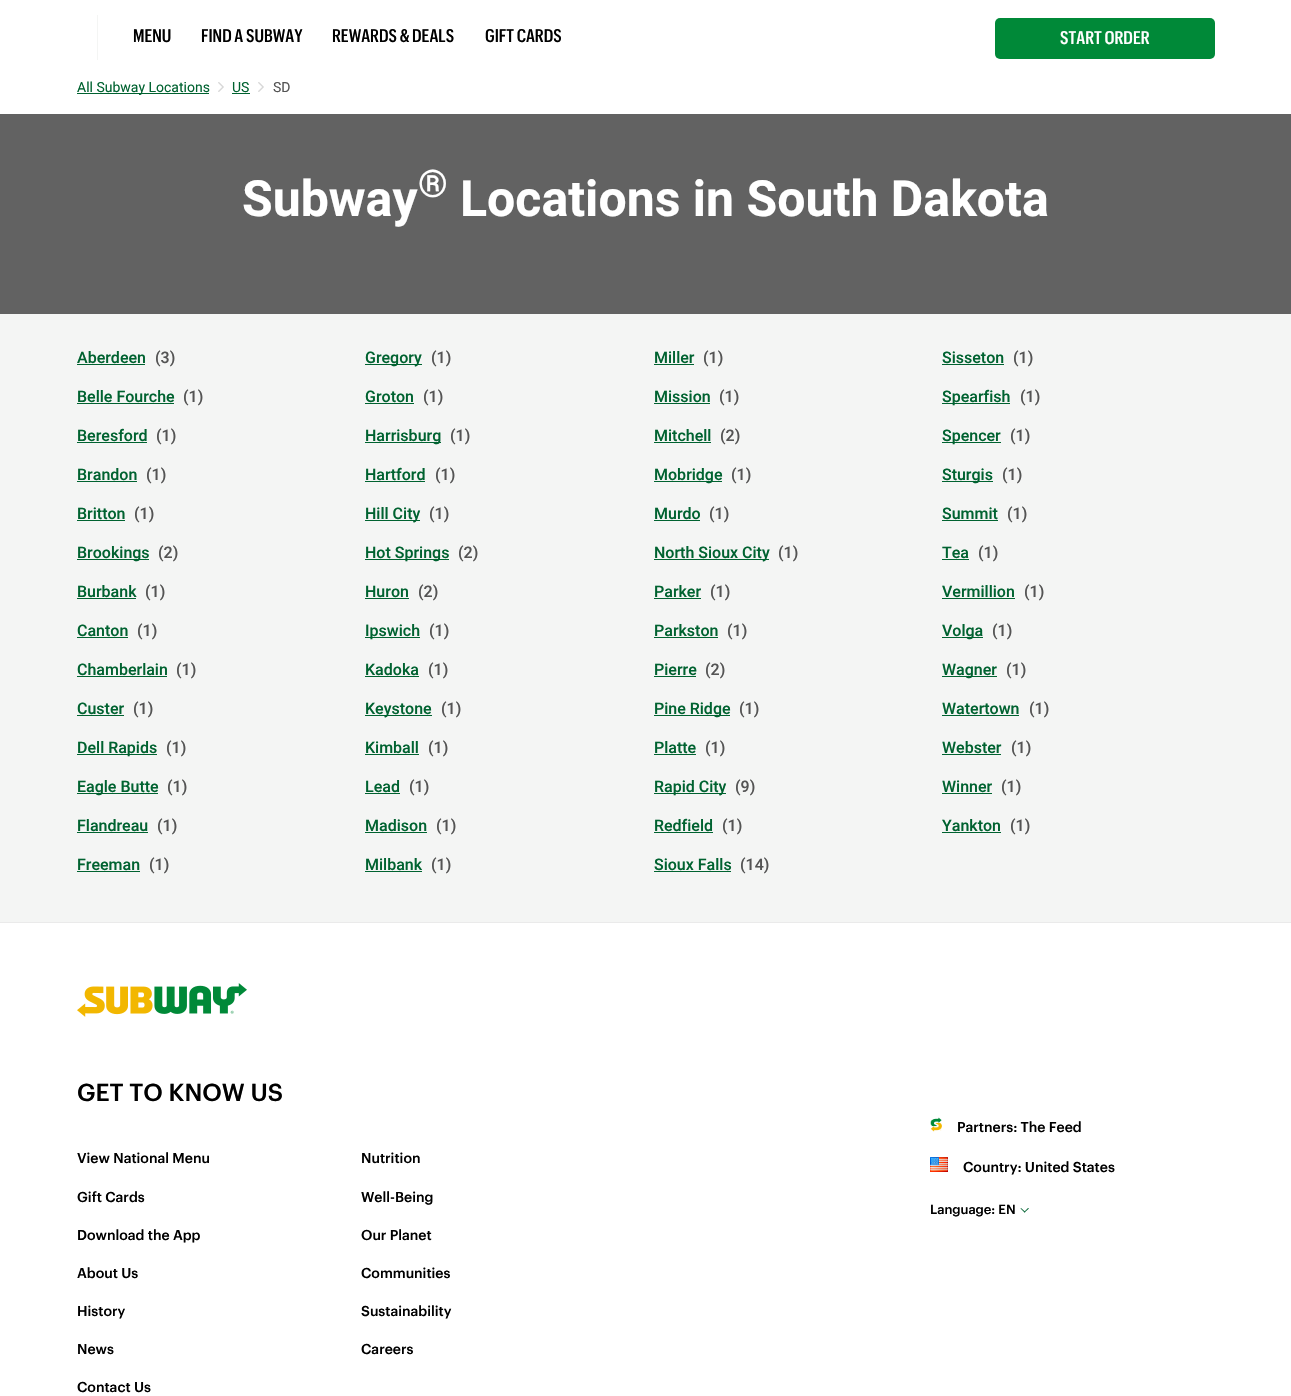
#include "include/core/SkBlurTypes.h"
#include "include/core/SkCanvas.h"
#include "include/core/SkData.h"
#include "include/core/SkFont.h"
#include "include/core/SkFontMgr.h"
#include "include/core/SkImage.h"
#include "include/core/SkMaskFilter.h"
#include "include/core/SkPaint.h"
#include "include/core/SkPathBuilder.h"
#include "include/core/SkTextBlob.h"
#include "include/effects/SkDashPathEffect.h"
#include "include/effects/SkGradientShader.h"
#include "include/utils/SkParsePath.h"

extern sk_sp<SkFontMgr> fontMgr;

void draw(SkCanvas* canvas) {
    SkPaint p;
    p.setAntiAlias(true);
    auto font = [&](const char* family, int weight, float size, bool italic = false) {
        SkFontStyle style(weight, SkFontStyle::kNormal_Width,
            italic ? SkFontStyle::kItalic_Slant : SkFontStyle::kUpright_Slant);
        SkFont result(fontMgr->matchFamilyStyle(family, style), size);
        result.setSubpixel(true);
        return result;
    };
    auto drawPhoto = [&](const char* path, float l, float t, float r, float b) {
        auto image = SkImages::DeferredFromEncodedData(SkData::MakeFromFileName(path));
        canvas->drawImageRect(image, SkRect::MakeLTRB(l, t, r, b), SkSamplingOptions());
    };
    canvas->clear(0xFFFFFFFF);
    p.setColor(0xFFF4F5F4);
    canvas->drawRect(SkRect::MakeLTRB(97, 15, 98, 60), p);
    auto font1 = font("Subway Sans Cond", 500, 18);
    p.setColor(0xFF000000);
    {
        const struct { const char* s; float x, y; } items[] = {
            {"MENU", 133, 42},
            {"FIND A SUBWAY", 201, 42},
            {"REWARDS & DEALS", 332, 42},
            {"GIFT CARDS", 485, 42},
        };
        for (auto [s, x, y] : items) {
            canvas->drawString(s, x, y, font1, p);
        }
    }
    p.setColor(0xFF008938);
    canvas->drawRoundRect(SkRect::MakeLTRB(995, 18, 1215, 59), 5, 5, p);
    p.setColor(0xFFFFFFFF);
    canvas->drawString("START ORDER", 1060, 44, font1, p);
    p.setColor(0xFF006230);
    canvas->drawRect(SkRect::MakeLTRB(77, 93, 209, 94), p);
    auto font2 = font("Roboto", 400, 14);
    canvas->drawString("All Subway Locations", 77, 92, font2, p);
    drawPhoto("media/1.png", 218, 82, 224, 92);
    canvas->drawString("US", 232, 92, font2, p);
    canvas->drawRect(SkRect::MakeLTRB(232, 93, 250, 94), p);
    drawPhoto("media/1.png", 258, 82, 264, 92);
    p.setColor(0xFF545454);
    canvas->drawString("SD", 273, 92, font2, p);
    p.setColor(0xFFF4F5F4);
    canvas->drawRect(SkRect::MakeLTRB(0, 314, 1291, 922), p);
    p.setColor(0xFF626262);
    canvas->drawRect(SkRect::MakeLTRB(0, 114, 1291, 314), p);
    auto font3 = font("Roboto", 700, 50);
    p.setColor(0xFFFFFFFF);
    canvas->drawString("Subway", 242, 216, font3, p);
    auto font4 = font("Roboto", 700, 38);
    canvas->drawString("®", 418, 197, font4, p);
    canvas->drawString("Locations in South Dakota", 460, 216, font3, p);
    auto font5 = font("Roboto", 500, 16);
    p.setColor(0xFF006230);
    canvas->drawString("Aberdeen", 77, 363, font5, p);
    canvas->drawRect(SkRect::MakeLTRB(77, 364, 145, 365), p);
    p.setColor(0xFF545454);
    canvas->drawString("(3)", 155, 363, font5, p);
    p.setColor(0xFF006230);
    canvas->drawRect(SkRect::MakeLTRB(365, 364, 422, 365), p);
    canvas->drawString("Gregory", 365, 363, font5, p);
    p.setColor(0xFF545454);
    canvas->drawString("(1)", 431, 363, font5, p);
    p.setColor(0xFF006230);
    canvas->drawString("Miller", 654, 363, font5, p);
    canvas->drawRect(SkRect::MakeLTRB(654, 364, 694, 365), p);
    p.setColor(0xFF545454);
    canvas->drawString("(1)", 703, 363, font5, p);
    p.setColor(0xFF006230);
    canvas->drawString("Sisseton", 942, 363, font5, p);
    canvas->drawRect(SkRect::MakeLTRB(942, 364, 1004, 365), p);
    p.setColor(0xFF545454);
    canvas->drawString("(1)", 1013, 363, font5, p);
    p.setColor(0xFF006230);
    canvas->drawString("Belle Fourche", 77, 402, font5, p);
    canvas->drawRect(SkRect::MakeLTRB(77, 403, 174, 404), p);
    p.setColor(0xFF545454);
    canvas->drawString("(1)", 183, 402, font5, p);
    p.setColor(0xFF006230);
    canvas->drawString("Groton", 365, 402, font5, p);
    canvas->drawRect(SkRect::MakeLTRB(365, 403, 414, 404), p);
    p.setColor(0xFF545454);
    canvas->drawString("(1)", 423, 402, font5, p);
    p.setColor(0xFF006230);
    canvas->drawString("Mission", 654, 402, font5, p);
    canvas->drawRect(SkRect::MakeLTRB(654, 403, 710, 404), p);
    p.setColor(0xFF545454);
    canvas->drawString("(1)", 719, 402, font5, p);
    p.setColor(0xFF006230);
    canvas->drawRect(SkRect::MakeLTRB(942, 403, 1010, 404), p);
    canvas->drawString("Spearfish", 942, 402, font5, p);
    p.setColor(0xFF545454);
    canvas->drawString("(1)", 1020, 402, font5, p);
    p.setColor(0xFF006230);
    canvas->drawString("Beresford", 77, 441, font5, p);
    canvas->drawRect(SkRect::MakeLTRB(77, 442, 147, 443), p);
    p.setColor(0xFF545454);
    canvas->drawString("(1)", 156, 441, font5, p);
    p.setColor(0xFF006230);
    canvas->drawRect(SkRect::MakeLTRB(365, 442, 441, 443), p);
    canvas->drawString("Harrisburg", 365, 441, font5, p);
    p.setColor(0xFF545454);
    canvas->drawString("(1)", 450, 441, font5, p);
    p.setColor(0xFF006230);
    canvas->drawString("Mitchell", 654, 441, font5, p);
    canvas->drawRect(SkRect::MakeLTRB(654, 442, 711, 443), p);
    p.setColor(0xFF545454);
    canvas->drawString("(2)", 720, 441, font5, p);
    p.setColor(0xFF006230);
    canvas->drawRect(SkRect::MakeLTRB(942, 442, 1001, 443), p);
    canvas->drawString("Spencer", 942, 441, font5, p);
    p.setColor(0xFF545454);
    canvas->drawString("(1)", 1010, 441, font5, p);
    p.setColor(0xFF006230);
    canvas->drawString("Brandon", 77, 480, font5, p);
    canvas->drawRect(SkRect::MakeLTRB(77, 481, 137, 482), p);
    p.setColor(0xFF545454);
    canvas->drawString("(1)", 146, 480, font5, p);
    p.setColor(0xFF006230);
    canvas->drawString("Hartford", 365, 480, font5, p);
    canvas->drawRect(SkRect::MakeLTRB(365, 481, 425, 482), p);
    p.setColor(0xFF545454);
    canvas->drawString("(1)", 435, 480, font5, p);
    p.setColor(0xFF006230);
    canvas->drawRect(SkRect::MakeLTRB(654, 481, 722, 482), p);
    canvas->drawString("Mobridge", 654, 480, font5, p);
    p.setColor(0xFF545454);
    canvas->drawString("(1)", 731, 480, font5, p);
    p.setColor(0xFF006230);
    canvas->drawRect(SkRect::MakeLTRB(942, 481, 993, 482), p);
    canvas->drawString("Sturgis", 942, 480, font5, p);
    p.setColor(0xFF545454);
    canvas->drawString("(1)", 1002, 480, font5, p);
    p.setColor(0xFF006230);
    canvas->drawString("Britton", 77, 519, font5, p);
    canvas->drawRect(SkRect::MakeLTRB(77, 520, 125, 521), p);
    p.setColor(0xFF545454);
    canvas->drawString("(1)", 134, 519, font5, p);
    p.setColor(0xFF006230);
    canvas->drawRect(SkRect::MakeLTRB(365, 520, 420, 521), p);
    canvas->drawString("Hill City", 365, 519, font5, p);
    p.setColor(0xFF545454);
    canvas->drawString("(1)", 429, 519, font5, p);
    p.setColor(0xFF006230);
    canvas->drawString("Murdo", 654, 519, font5, p);
    canvas->drawRect(SkRect::MakeLTRB(654, 520, 700, 521), p);
    p.setColor(0xFF545454);
    canvas->drawString("(1)", 709, 519, font5, p);
    p.setColor(0xFF006230);
    canvas->drawString("Summit", 942, 519, font5, p);
    canvas->drawRect(SkRect::MakeLTRB(942, 520, 998, 521), p);
    p.setColor(0xFF545454);
    canvas->drawString("(1)", 1007, 519, font5, p);
    p.setColor(0xFF006230);
    canvas->drawRect(SkRect::MakeLTRB(77, 559, 149, 560), p);
    canvas->drawString("Brookings", 77, 558, font5, p);
    p.setColor(0xFF545454);
    canvas->drawString("(2)", 158, 558, font5, p);
    p.setColor(0xFF006230);
    canvas->drawRect(SkRect::MakeLTRB(365, 559, 449, 560), p);
    canvas->drawString("Hot Springs", 365, 558, font5, p);
    p.setColor(0xFF545454);
    canvas->drawString("(2)", 458, 558, font5, p);
    p.setColor(0xFF006230);
    canvas->drawRect(SkRect::MakeLTRB(654, 559, 769, 560), p);
    canvas->drawString("North Sioux City", 654, 558, font5, p);
    p.setColor(0xFF545454);
    canvas->drawString("(1)", 778, 558, font5, p);
    p.setColor(0xFF006230);
    canvas->drawString("Tea", 942, 558, font5, p);
    canvas->drawRect(SkRect::MakeLTRB(942, 559, 969, 560), p);
    p.setColor(0xFF545454);
    canvas->drawString("(1)", 978, 558, font5, p);
    p.setColor(0xFF006230);
    canvas->drawString("Burbank", 77, 597, font5, p);
    canvas->drawRect(SkRect::MakeLTRB(77, 598, 136, 599), p);
    p.setColor(0xFF545454);
    canvas->drawString("(1)", 145, 597, font5, p);
    p.setColor(0xFF006230);
    canvas->drawString("Huron", 365, 597, font5, p);
    canvas->drawRect(SkRect::MakeLTRB(365, 598, 409, 599), p);
    p.setColor(0xFF545454);
    canvas->drawString("(2)", 418, 597, font5, p);
    p.setColor(0xFF006230);
    canvas->drawString("Parker", 654, 597, font5, p);
    canvas->drawRect(SkRect::MakeLTRB(654, 598, 701, 599), p);
    p.setColor(0xFF545454);
    canvas->drawString("(1)", 710, 597, font5, p);
    p.setColor(0xFF006230);
    canvas->drawString("Vermillion", 942, 597, font5, p);
    canvas->drawRect(SkRect::MakeLTRB(942, 598, 1015, 599), p);
    p.setColor(0xFF545454);
    canvas->drawString("(1)", 1024, 597, font5, p);
    p.setColor(0xFF006230);
    canvas->drawString("Canton", 77, 636, font5, p);
    canvas->drawRect(SkRect::MakeLTRB(77, 637, 128, 638), p);
    p.setColor(0xFF545454);
    canvas->drawString("(1)", 137, 636, font5, p);
    p.setColor(0xFF006230);
    canvas->drawRect(SkRect::MakeLTRB(365, 637, 420, 638), p);
    canvas->drawString("Ipswich", 365, 636, font5, p);
    p.setColor(0xFF545454);
    canvas->drawString("(1)", 429, 636, font5, p);
    p.setColor(0xFF006230);
    canvas->drawString("Parkston", 654, 636, font5, p);
    canvas->drawRect(SkRect::MakeLTRB(654, 637, 718, 638), p);
    p.setColor(0xFF545454);
    canvas->drawString("(1)", 727, 636, font5, p);
    p.setColor(0xFF006230);
    canvas->drawRect(SkRect::MakeLTRB(942, 637, 983, 638), p);
    canvas->drawString("Volga", 942, 636, font5, p);
    p.setColor(0xFF545454);
    canvas->drawString("(1)", 992, 636, font5, p);
    p.setColor(0xFF006230);
    canvas->drawString("Chamberlain", 77, 675, font5, p);
    canvas->drawRect(SkRect::MakeLTRB(77, 676, 167, 677), p);
    p.setColor(0xFF545454);
    canvas->drawString("(1)", 176, 675, font5, p);
    p.setColor(0xFF006230);
    canvas->drawString("Kadoka", 365, 675, font5, p);
    canvas->drawRect(SkRect::MakeLTRB(365, 676, 419, 677), p);
    p.setColor(0xFF545454);
    canvas->drawString("(1)", 428, 675, font5, p);
    p.setColor(0xFF006230);
    canvas->drawString("Pierre", 654, 675, font5, p);
    canvas->drawRect(SkRect::MakeLTRB(654, 676, 696, 677), p);
    p.setColor(0xFF545454);
    canvas->drawString("(2)", 705, 675, font5, p);
    p.setColor(0xFF006230);
    canvas->drawRect(SkRect::MakeLTRB(942, 676, 997, 677), p);
    canvas->drawString("Wagner", 942, 675, font5, p);
    p.setColor(0xFF545454);
    canvas->drawString("(1)", 1006, 675, font5, p);
    p.setColor(0xFF006230);
    canvas->drawString("Custer", 77, 714, font5, p);
    canvas->drawRect(SkRect::MakeLTRB(77, 715, 124, 716), p);
    p.setColor(0xFF545454);
    canvas->drawString("(1)", 133, 714, font5, p);
    p.setColor(0xFF006230);
    canvas->drawRect(SkRect::MakeLTRB(365, 715, 432, 716), p);
    canvas->drawString("Keystone", 365, 714, font5, p);
    p.setColor(0xFF545454);
    canvas->drawString("(1)", 441, 714, font5, p);
    p.setColor(0xFF006230);
    canvas->drawRect(SkRect::MakeLTRB(654, 715, 730, 716), p);
    canvas->drawString("Pine Ridge", 654, 714, font5, p);
    p.setColor(0xFF545454);
    canvas->drawString("(1)", 739, 714, font5, p);
    p.setColor(0xFF006230);
    canvas->drawString("Watertown", 942, 714, font5, p);
    canvas->drawRect(SkRect::MakeLTRB(942, 715, 1019, 716), p);
    p.setColor(0xFF545454);
    canvas->drawString("(1)", 1029, 714, font5, p);
    p.setColor(0xFF006230);
    canvas->drawRect(SkRect::MakeLTRB(77, 754, 157, 755), p);
    canvas->drawString("Dell Rapids", 77, 753, font5, p);
    p.setColor(0xFF545454);
    canvas->drawString("(1)", 166, 753, font5, p);
    p.setColor(0xFF006230);
    canvas->drawString("Kimball", 365, 753, font5, p);
    canvas->drawRect(SkRect::MakeLTRB(365, 754, 419, 755), p);
    p.setColor(0xFF545454);
    canvas->drawString("(1)", 428, 753, font5, p);
    p.setColor(0xFF006230);
    canvas->drawString("Platte", 654, 753, font5, p);
    canvas->drawRect(SkRect::MakeLTRB(654, 754, 696, 755), p);
    p.setColor(0xFF545454);
    canvas->drawString("(1)", 705, 753, font5, p);
    p.setColor(0xFF006230);
    canvas->drawString("Webster", 942, 753, font5, p);
    canvas->drawRect(SkRect::MakeLTRB(942, 754, 1001, 755), p);
    p.setColor(0xFF545454);
    canvas->drawString("(1)", 1011, 753, font5, p);
    p.setColor(0xFF006230);
    canvas->drawRect(SkRect::MakeLTRB(77, 793, 158, 794), p);
    canvas->drawString("Eagle Butte", 77, 792, font5, p);
    p.setColor(0xFF545454);
    canvas->drawString("(1)", 167, 792, font5, p);
    p.setColor(0xFF006230);
    canvas->drawString("Lead", 365, 792, font5, p);
    canvas->drawRect(SkRect::MakeLTRB(365, 793, 400, 794), p);
    p.setColor(0xFF545454);
    canvas->drawString("(1)", 409, 792, font5, p);
    p.setColor(0xFF006230);
    canvas->drawRect(SkRect::MakeLTRB(654, 793, 726, 794), p);
    canvas->drawString("Rapid City", 654, 792, font5, p);
    p.setColor(0xFF545454);
    canvas->drawString("(9)", 735, 792, font5, p);
    p.setColor(0xFF006230);
    canvas->drawString("Winner", 942, 792, font5, p);
    canvas->drawRect(SkRect::MakeLTRB(942, 793, 992, 794), p);
    p.setColor(0xFF545454);
    canvas->drawString("(1)", 1001, 792, font5, p);
    p.setColor(0xFF006230);
    canvas->drawString("Flandreau", 77, 831, font5, p);
    canvas->drawRect(SkRect::MakeLTRB(77, 832, 148, 833), p);
    p.setColor(0xFF545454);
    canvas->drawString("(1)", 157, 831, font5, p);
    p.setColor(0xFF006230);
    canvas->drawString("Madison", 365, 831, font5, p);
    canvas->drawRect(SkRect::MakeLTRB(365, 832, 427, 833), p);
    p.setColor(0xFF545454);
    canvas->drawString("(1)", 436, 831, font5, p);
    p.setColor(0xFF006230);
    canvas->drawString("Redfield", 654, 831, font5, p);
    canvas->drawRect(SkRect::MakeLTRB(654, 832, 713, 833), p);
    p.setColor(0xFF545454);
    canvas->drawString("(1)", 722, 831, font5, p);
    p.setColor(0xFF006230);
    canvas->drawString("Yankton", 942, 831, font5, p);
    canvas->drawRect(SkRect::MakeLTRB(942, 832, 1001, 833), p);
    p.setColor(0xFF545454);
    canvas->drawString("(1)", 1010, 831, font5, p);
    p.setColor(0xFF006230);
    canvas->drawString("Freeman", 77, 870, font5, p);
    canvas->drawRect(SkRect::MakeLTRB(77, 871, 140, 872), p);
    p.setColor(0xFF545454);
    canvas->drawString("(1)", 149, 870, font5, p);
    p.setColor(0xFF006230);
    canvas->drawString("Milbank", 365, 870, font5, p);
    canvas->drawRect(SkRect::MakeLTRB(365, 871, 422, 872), p);
    p.setColor(0xFF545454);
    canvas->drawString("(1)", 431, 870, font5, p);
    p.setColor(0xFF006230);
    canvas->drawString("Sioux Falls", 654, 870, font5, p);
    canvas->drawRect(SkRect::MakeLTRB(654, 871, 731, 872), p);
    p.setColor(0xFF545454);
    canvas->drawString("(14)", 740, 870, font5, p);
    p.setColor(0xFFEAEAEA);
    canvas->drawRect(SkRect::MakeLTRB(0, 922, 1291, 923), p);
    drawPhoto("media/2.png", 77, 983, 247, 1017);
    auto font6 = font("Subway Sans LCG", 500, 24);
    p.setColor(0xFF000000);
    canvas->drawString("GET TO KNOW US", 77, 1101, font6, p);
    auto font7 = font("Subway Sans LCG", 500, 14);
    {
        const struct { const char* s; float x, y; } items[] = {
            {"View National Menu", 77, 1163},
            {"Gift Cards", 77, 1202},
            {"Download the App", 77, 1240},
            {"About Us", 77, 1278},
            {"History", 77, 1316},
            {"News", 77, 1354},
            {"Contact Us", 77, 1392},
            {"Nutrition", 361, 1163},
            {"Well-Being", 361, 1202},
            {"Our Planet", 361, 1240},
            {"Communities", 361, 1278},
            {"Sustainability", 361, 1316},
            {"Careers", 361, 1354},
        };
        for (auto [s, x, y] : items) {
            canvas->drawString(s, x, y, font7, p);
        }
    }
    drawPhoto("media/3.png", 930, 1117, 942, 1132);
    canvas->drawString("Partners: The Feed", 957, 1132, font7, p);
    drawPhoto("media/4.png", 930, 1157, 948, 1172);
    canvas->drawString("Country: United States", 963, 1172, font7, p);
    auto font8 = font("Subway Sans LCG", 500, 13);
    canvas->drawString("Language: EN", 930, 1214, font8, p);
    p.setColor(0xFF006230);
    canvas->drawPath(SkPathBuilder().moveTo(1024, 1212).lineTo(1028, 1208).lineTo(1029, 1208.5f).lineTo(1024.5f, 1212.5f).close().detach(), p);
    canvas->drawPath(SkPathBuilder().moveTo(1020.5f, 1208.5f).lineTo(1021, 1208).lineTo(1025.5f, 1212).lineTo(1024.5f, 1212.5f).close().detach(), p);
}
